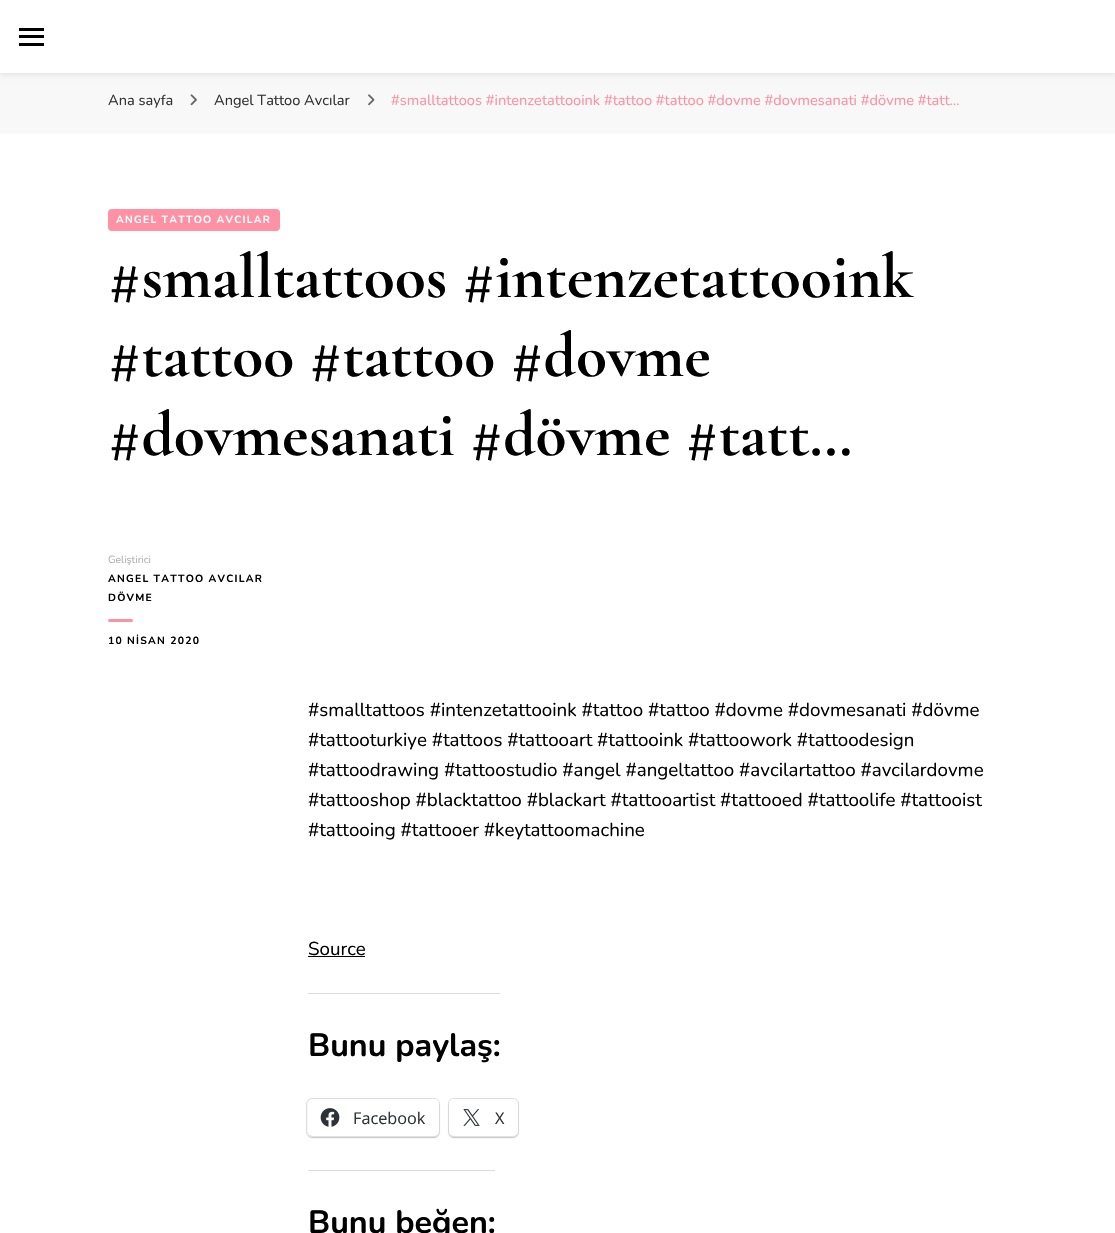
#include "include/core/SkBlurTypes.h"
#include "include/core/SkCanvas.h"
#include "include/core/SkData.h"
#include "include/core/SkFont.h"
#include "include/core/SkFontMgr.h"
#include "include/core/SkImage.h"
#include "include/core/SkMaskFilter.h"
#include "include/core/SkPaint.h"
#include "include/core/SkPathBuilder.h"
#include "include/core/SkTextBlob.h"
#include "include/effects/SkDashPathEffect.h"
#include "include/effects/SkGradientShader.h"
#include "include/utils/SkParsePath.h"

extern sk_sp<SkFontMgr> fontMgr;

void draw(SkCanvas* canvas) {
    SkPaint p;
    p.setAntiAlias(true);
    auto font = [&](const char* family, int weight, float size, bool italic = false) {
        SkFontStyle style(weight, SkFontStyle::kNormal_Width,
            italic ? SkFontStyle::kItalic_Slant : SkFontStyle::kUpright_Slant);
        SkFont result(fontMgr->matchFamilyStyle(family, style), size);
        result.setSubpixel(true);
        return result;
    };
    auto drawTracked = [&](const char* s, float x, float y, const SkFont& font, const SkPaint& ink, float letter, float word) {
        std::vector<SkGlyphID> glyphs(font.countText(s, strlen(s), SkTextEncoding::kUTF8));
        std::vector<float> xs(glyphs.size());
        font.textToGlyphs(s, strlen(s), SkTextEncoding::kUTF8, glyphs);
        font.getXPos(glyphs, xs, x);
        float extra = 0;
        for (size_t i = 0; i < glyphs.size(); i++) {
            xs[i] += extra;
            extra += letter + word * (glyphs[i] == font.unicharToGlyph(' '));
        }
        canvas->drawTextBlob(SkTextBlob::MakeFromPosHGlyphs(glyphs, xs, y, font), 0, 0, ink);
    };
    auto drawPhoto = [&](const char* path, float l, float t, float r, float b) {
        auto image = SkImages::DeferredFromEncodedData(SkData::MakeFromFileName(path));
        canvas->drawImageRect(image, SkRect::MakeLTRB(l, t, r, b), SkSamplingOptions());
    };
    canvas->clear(0xFFF8F8F8);
    p.setColor(0x1A000000);
    p.setMaskFilter(SkMaskFilter::MakeBlur(kNormal_SkBlurStyle, 3));
    canvas->drawRect(SkRect::MakeLTRB(0, 1, 1115, 74), p);
    p.setMaskFilter(nullptr);
    {
        const struct { float l, t, r, b; SkColor color; } items[] = {
            {0, 0, 1115, 73, 0xFFFFFFFF},
            {19, 28, 44, 31, 0xFF000000},
            {19, 35, 44, 38, 0xFF000000},
            {19, 43, 44, 46, 0xFF000000},
        };
        for (auto [l, t, r, b, color] : items) {
            p.setColor(color);
            canvas->drawRect(SkRect::MakeLTRB(l, t, r, b), p);
        }
    }
    auto font1 = font("Nunito", 400, 14.6f);
    p.setColor(0xFF333333);
    canvas->drawString("Ana sayfa", 108, 105, font1, p);
    drawPhoto("media/1.png", 190, 94, 197, 106);
    canvas->drawString("Angel Tattoo Avcılar", 214, 105, font1, p);
    drawPhoto("media/2.png", 368, 94, 375, 106);
    p.setColor(0xFFFF91A4);
    canvas->drawString("#smalltattoos #intenzetattooink #tattoo #tattoo #dovme #dovmesanati #dövme #tatt…", 391, 105, font1, p);
    p.setColor(0xFFFFFFFF);
    canvas->drawRect(SkRect::MakeLTRB(0, 134, 1115, 1233), p);
    p.setColor(0xFFFF91A4);
    canvas->drawRoundRect(SkRect::MakeLTRB(108, 209, 280, 231), 4, 4, p);
    auto font2 = font("Nunito", 700, 10.4f);
    p.setColor(0xFFFFFFFF);
    drawTracked("ANGEL TATTOO AVCILAR", 116, 223, font2, p, 1.25f, 0);
    auto font3 = font("Cormorant Garamond", 700, 63.5f);
    p.setColor(0xFF000000);
    {
        const struct { const char* s; float x, y; } items[] = {
            {"#smalltattoos #intenzetattooink", 108, 297},
            {"#tattoo #tattoo #dovme", 108, 376},
            {"#dovmesanati #dövme #tatt…", 108, 455},
        };
        for (auto [s, x, y] : items) {
            canvas->drawString(s, x, y, font3, p);
        }
    }
    auto font4 = font("Nunito", 400, 10.4f);
    p.setColor(0xFFB1B1B2);
    canvas->drawString("Geliştirici", 108, 563, font4, p);
    p.setColor(0xFF000000);
    drawTracked("ANGEL TATTOO AVCILAR", 108, 582, font2, p, 1.25f, 0);
    drawTracked("DÖVME", 108, 601, font2, p, 1.25f, 0);
    p.setColor(0xFFFF91A4);
    canvas->drawRoundRect(SkRect::MakeLTRB(108, 619, 133, 622), 1.5f, 1.5f, p);
    p.setColor(0xFF000000);
    drawTracked("10 NİSAN 2020", 108, 644, font2, p, 1.25f, 0);
    auto font5 = font("Nunito", 400, 18.75f);
    {
        const struct { const char* s; float x, y; } items[] = {
            {"#smalltattoos #intenzetattooink #tattoo #tattoo #dovme #dovmesanati #dövme", 308, 716},
            {"#tattooturkiye #tattoos #tattooart #tattooink #tattoowork #tattoodesign", 308, 746},
            {"#tattoodrawing #tattoostudio #angel #angeltattoo #avcilartattoo #avcilardovme", 308, 776},
            {"#tattooshop #blacktattoo #blackart #tattooartist #tattooed #tattoolife #tattooist", 308, 806},
            {"#tattooing #tattooer #keytattoomachine", 308, 836},
            {"Source", 308, 955},
        };
        for (auto [s, x, y] : items) {
            canvas->drawString(s, x, y, font5, p);
        }
    }
    canvas->drawRect(SkRect::MakeLTRB(308, 956, 365, 957), p);
    p.setColor(0xFFDCDCDE);
    canvas->drawRect(SkRect::MakeLTRB(308, 993, 500, 994), p);
    auto font6 = font("Nunito", 700, 32.25f);
    p.setColor(0xFF000000);
    canvas->drawString("Bunu paylaş:", 308, 1056, font6, p);
    p.setStyle(SkPaint::kStroke_Style);
    p.setStrokeWidth(1);
    p.setColor(0xFFE0E0E0);
    canvas->drawRoundRect(SkRect::MakeLTRB(306.5f, 1098.5f, 439.5f, 1137.5f), 5.5f, 5.5f, p);
    p.setStyle(SkPaint::kFill_Style);
    p.setColor(0x1F000000);
    p.setMaskFilter(SkMaskFilter::MakeBlur(kNormal_SkBlurStyle, 1));
    canvas->drawRoundRect(SkRect::MakeLTRB(308, 1100, 439, 1138), 5, 5, p);
    p.setMaskFilter(nullptr);
    p.setColor(0xFFFFFFFF);
    canvas->drawRoundRect(SkRect::MakeLTRB(308, 1099, 439, 1136), 5, 5, p);
    drawPhoto("media/3.png", 320, 1108, 340, 1127);
    auto font7 = font("Open Sans", 400, 16.25f);
    p.setColor(0xFF2C3338);
    canvas->drawString("Facebook", 353, 1124, font7, p);
    p.setStyle(SkPaint::kStroke_Style);
    p.setColor(0xFFE0E0E0);
    canvas->drawRoundRect(SkRect::MakeLTRB(448.5f, 1098.5f, 518.5f, 1137.5f), 5.5f, 5.5f, p);
    p.setStyle(SkPaint::kFill_Style);
    p.setColor(0x1F000000);
    p.setMaskFilter(SkMaskFilter::MakeBlur(kNormal_SkBlurStyle, 1));
    canvas->drawRoundRect(SkRect::MakeLTRB(449, 1100, 518, 1138), 5, 5, p);
    p.setMaskFilter(nullptr);
    p.setColor(0xFFFFFFFF);
    canvas->drawRoundRect(SkRect::MakeLTRB(449, 1099, 518, 1136), 5, 5, p);
    drawPhoto("media/4.png", 463, 1109, 480, 1126);
    p.setColor(0xFF2C3338);
    canvas->drawString("X", 495, 1124, font7, p);
    p.setColor(0xFFDCDCDE);
    canvas->drawRect(SkRect::MakeLTRB(308, 1170, 495, 1171), p);
    p.setColor(0xFF000000);
    canvas->drawString("Bunu beğen:", 308, 1233, font6, p);
}
